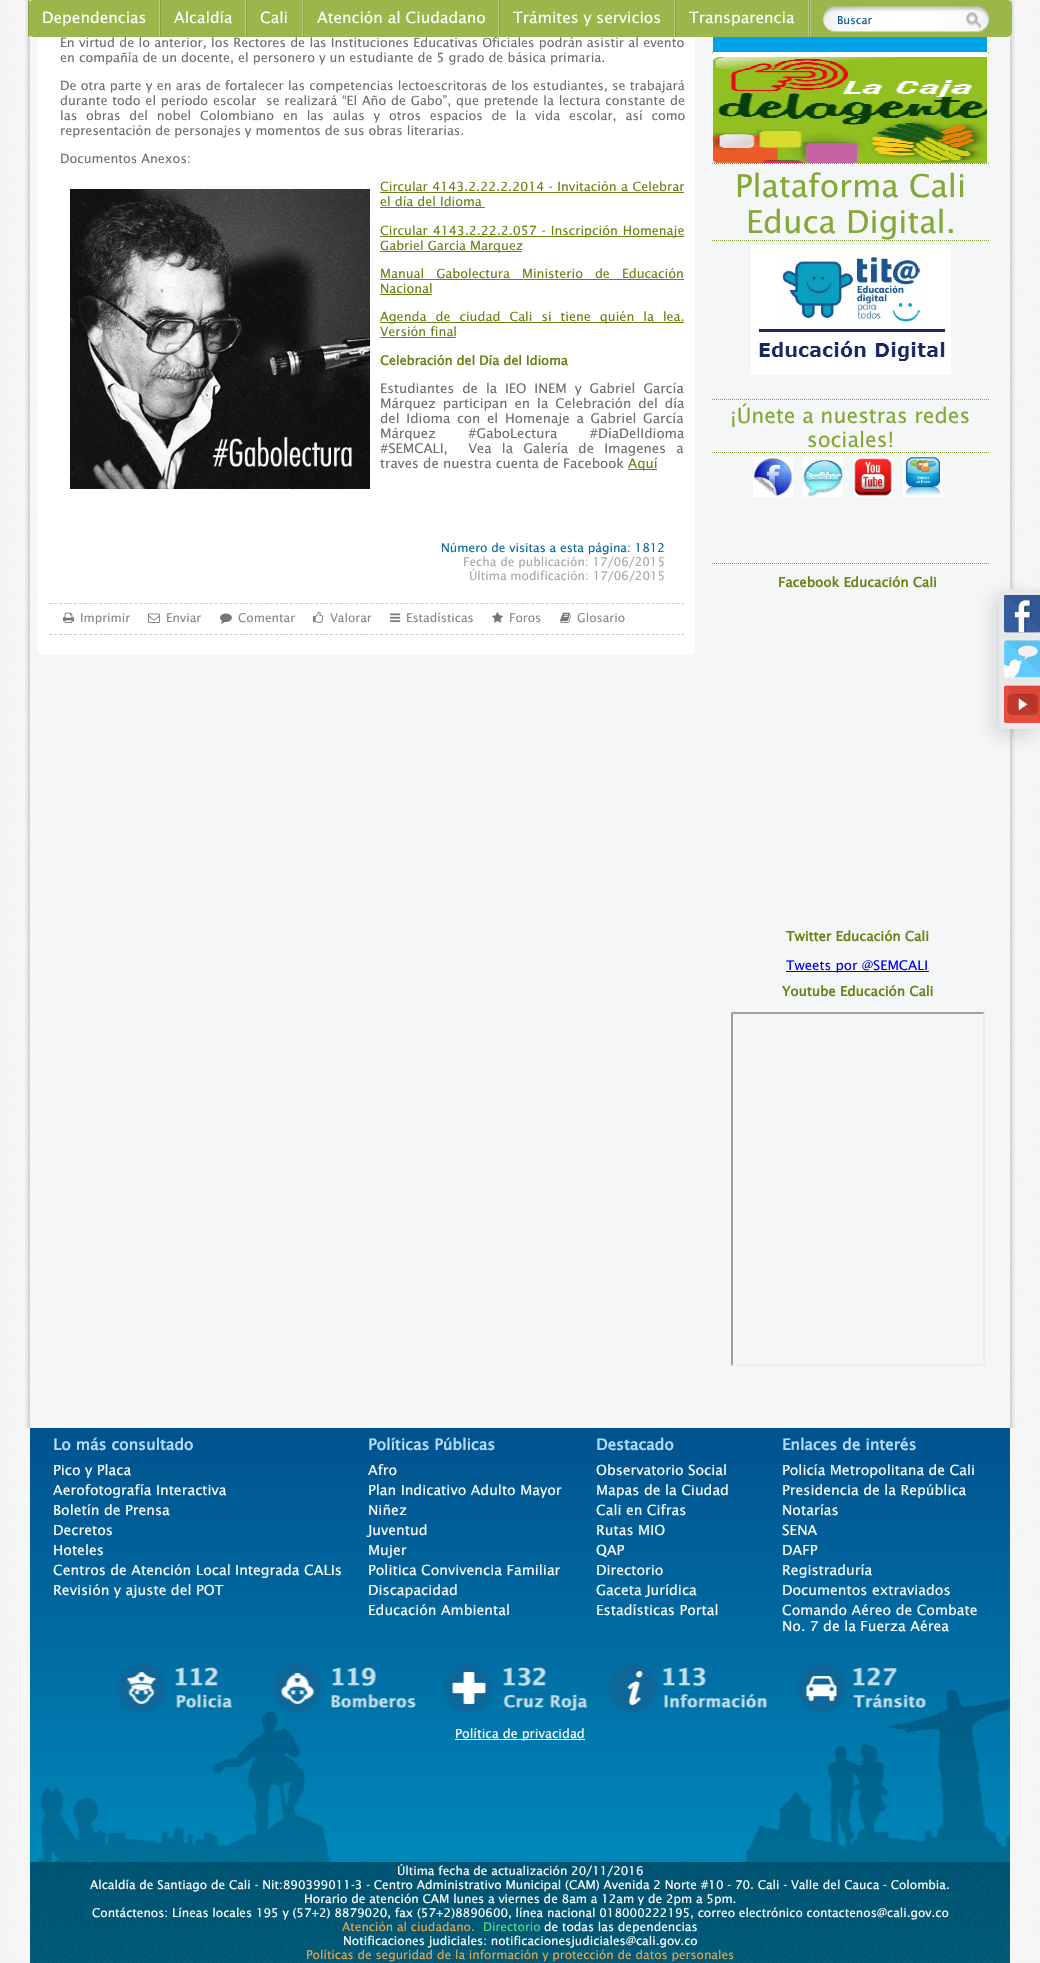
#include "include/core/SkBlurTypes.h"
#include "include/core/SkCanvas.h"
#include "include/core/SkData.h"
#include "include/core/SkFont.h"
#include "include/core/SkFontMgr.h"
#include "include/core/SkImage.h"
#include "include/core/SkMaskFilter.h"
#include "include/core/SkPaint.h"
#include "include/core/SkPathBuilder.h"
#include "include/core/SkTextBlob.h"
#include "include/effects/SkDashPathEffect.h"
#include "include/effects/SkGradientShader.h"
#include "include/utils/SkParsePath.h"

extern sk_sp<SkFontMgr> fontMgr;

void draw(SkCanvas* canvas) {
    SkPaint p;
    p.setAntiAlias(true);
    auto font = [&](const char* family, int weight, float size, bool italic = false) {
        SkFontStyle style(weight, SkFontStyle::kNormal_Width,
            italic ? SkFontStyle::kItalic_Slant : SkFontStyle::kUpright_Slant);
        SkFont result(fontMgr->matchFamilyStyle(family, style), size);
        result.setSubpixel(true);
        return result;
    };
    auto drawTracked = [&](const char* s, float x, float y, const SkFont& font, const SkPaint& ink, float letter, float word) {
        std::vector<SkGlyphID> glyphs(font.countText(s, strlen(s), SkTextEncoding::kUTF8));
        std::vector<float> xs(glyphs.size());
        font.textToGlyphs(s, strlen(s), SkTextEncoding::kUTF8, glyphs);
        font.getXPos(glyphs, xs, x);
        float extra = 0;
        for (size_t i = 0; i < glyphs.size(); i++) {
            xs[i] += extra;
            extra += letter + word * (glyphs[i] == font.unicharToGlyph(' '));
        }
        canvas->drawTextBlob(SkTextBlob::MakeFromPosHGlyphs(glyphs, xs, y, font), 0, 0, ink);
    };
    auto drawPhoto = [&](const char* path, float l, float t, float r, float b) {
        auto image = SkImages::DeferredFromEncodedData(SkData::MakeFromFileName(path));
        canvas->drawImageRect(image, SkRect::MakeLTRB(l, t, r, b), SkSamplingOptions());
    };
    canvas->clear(0xFFF5F5F5);
    drawPhoto("media/1.png", 12, 2, 1037, 1962);
    drawPhoto("media/2.png", 25, 0, 1015, 1428);
    p.setColor(0xFFF5F6F7);
    canvas->drawRect(SkRect::MakeLTRB(44, 2, 1010, 1428), p);
    p.setColor(0xFFFFFFFF);
    canvas->drawRoundRect(SkRect::MakeLTRB(38, -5, 695, 655), 5, 5, p);
    p.setColor(0xFF9BB64B);
    canvas->drawRoundRect(SkRect::MakeLTRB(28, 0, 1012, 37), 5, 5, p);
    p.setColor(0xFFB7CB7E);
    canvas->drawRect(SkRect::MakeLTRB(159, 0, 160, 37), p);
    p.setColor(0xFF8BA343);
    canvas->drawRect(SkRect::MakeLTRB(28, 0, 29, 37), p);
    auto font1 = font("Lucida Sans", 400, 15.4f);
    p.setColor(0xFFFFFFFF);
    canvas->drawString("Dependencias", 42, 23, font1, p);
    p.setColor(0xFFB7CB7E);
    canvas->drawRect(SkRect::MakeLTRB(245, 0, 246, 37), p);
    p.setColor(0xFF8BA343);
    canvas->drawRect(SkRect::MakeLTRB(160, 0, 161, 37), p);
    p.setColor(0xFFFFFFFF);
    canvas->drawString("Alcaldía", 174, 23, font1, p);
    p.setColor(0xFFB7CB7E);
    canvas->drawRect(SkRect::MakeLTRB(302, 0, 303, 37), p);
    p.setColor(0xFF8BA343);
    canvas->drawRect(SkRect::MakeLTRB(246, 0, 247, 37), p);
    p.setColor(0xFFFFFFFF);
    canvas->drawString("Cali", 260, 23, font1, p);
    p.setColor(0xFFB7CB7E);
    canvas->drawRect(SkRect::MakeLTRB(498, 0, 499, 37), p);
    p.setColor(0xFF8BA343);
    canvas->drawRect(SkRect::MakeLTRB(303, 0, 304, 37), p);
    p.setColor(0xFFFFFFFF);
    canvas->drawString("Atención al Ciudadano", 317, 23, font1, p);
    p.setColor(0xFFB7CB7E);
    canvas->drawRect(SkRect::MakeLTRB(674, 0, 675, 37), p);
    p.setColor(0xFF8BA343);
    canvas->drawRect(SkRect::MakeLTRB(499, 0, 500, 37), p);
    p.setColor(0xFFFFFFFF);
    canvas->drawString("Trámites y servicios", 513, 23, font1, p);
    p.setColor(0xFFB7CB7E);
    canvas->drawRect(SkRect::MakeLTRB(808, 0, 809, 37), p);
    p.setColor(0xFF8BA343);
    canvas->drawRect(SkRect::MakeLTRB(675, 0, 676, 37), p);
    p.setColor(0xFFFFFFFF);
    canvas->drawString("Transparencia", 689, 23, font1, p);
    p.setColor(0xFFB7CB7E);
    canvas->drawRect(SkRect::MakeLTRB(810, 0, 811, 37), p);
    p.setColor(0xFF8BA343);
    canvas->drawRect(SkRect::MakeLTRB(809, 0, 810, 37), p);
    drawPhoto("media/3.png", 823, 6, 989, 32);
    auto font2 = font("Lucida Sans", 400, 11);
    p.setColor(0xFF0A5991);
    canvas->drawString("Buscar", 837, 24, font2, p);
    auto font3 = font("Lucida Sans", 400, 12.65f);
    p.setColor(0xFF706F6F);
    drawTracked("En virtud de lo anterior, los Rectores de las Instituciones Educativas Oficiales podrán asistir al evento", 60, 47, font3, p, 0, 0.3f);
    canvas->drawString("en compañía de un docente, el personero y un estudiante de 5 grado de básica primaria.", 60, 62, font3, p);
    drawTracked("De otra parte y en aras de fortalecer las competencias lectoescritoras de los estudiantes, se trabajará", 60, 90, font3, p, 0, 0.25f);
    drawTracked("durante todo el periodo escolar  se realizará “El Año de Gabo”, que pretende la lectura constante de", 60, 105, font3, p, 0, 0.75f);
    drawTracked("las obras del nobel Colombiano en las aulas y otros espacios de la vida escolar, así como", 60, 120, font3, p, 0, 4.9f);
    canvas->drawString("representación de personajes y momentos de sus obras literarias.", 60, 135, font3, p);
    canvas->drawString("Documentos Anexos:", 60, 163, font3, p);
    drawPhoto("media/4.png", 70, 189, 370, 489);
    p.setColor(0xFF678316);
    drawTracked("Circular 4143.2.22.2.2014 - Invitación a Celebrar", 380, 191, font3, p, 0, 0.5f);
    canvas->drawRect(SkRect::MakeLTRB(380, 192, 684, 193), p);
    canvas->drawString("el día del Idioma", 380, 206, font3, p);
    canvas->drawRect(SkRect::MakeLTRB(380, 207, 485, 208), p);
    canvas->drawRect(SkRect::MakeLTRB(380, 236, 684, 237), p);
    drawTracked("Circular 4143.2.22.2.057 - Inscripción Homenaje", 380, 235, font3, p, 0, 1);
    canvas->drawRect(SkRect::MakeLTRB(380, 251, 522, 252), p);
    canvas->drawString("Gabriel Garcia Marquez", 380, 250, font3, p);
    drawTracked("Manual Gabolectura Ministerio de Educación", 380, 278, font3, p, 0, 8);
    canvas->drawRect(SkRect::MakeLTRB(380, 279, 684, 280), p);
    canvas->drawString("Nacional", 380, 293, font3, p);
    canvas->drawRect(SkRect::MakeLTRB(380, 294, 432, 295), p);
    canvas->drawRect(SkRect::MakeLTRB(380, 322, 684, 323), p);
    drawTracked("Agenda de ciudad Cali si tiene quién la lea.", 380, 321, font3, p, 0, 5);
    canvas->drawString("Versión final", 380, 336, font3, p);
    canvas->drawRect(SkRect::MakeLTRB(380, 337, 456, 338), p);
    auto font4 = font("Lucida Sans", 700, 12.65f);
    canvas->drawString("Celebración del Día del Idioma", 380, 365, font4, p);
    auto font5 = font("Lucida Sans", 400, 13.3f);
    p.setColor(0xFF706F6F);
    drawTracked("Estudiantes de la IEO INEM y Gabriel García", 380, 393, font5, p, 0, 3.75f);
    drawTracked("Márquez participan en la Celebración del día", 380, 408, font5, p, 0, 2.75f);
    drawTracked("del Idioma con el Homenaje a Gabriel García", 380, 423, font5, p, 0, 2.5f);
    drawTracked("Márquez #GaboLectura #DíaDelIdioma", 380, 438, font5, p, 0, 28);
    drawTracked("#SEMCALI,  Vea la Galería de Imagenes a", 380, 453, font5, p, 0, 6);
    canvas->drawString("traves de nuestra cuenta de Facebook", 380, 468, font5, p);
    p.setColor(0xFF678316);
    canvas->drawRect(SkRect::MakeLTRB(628, 469, 657, 470), p);
    canvas->drawString("Aquí", 628, 468, font5, p);
    auto font6 = font("Lucida Sans", 400, 12);
    p.setColor(0xFF0A689C);
    canvas->drawString("Número de visitas a esta página: 1812", 441, 552, font6, p);
    p.setColor(0xFFA8A8A8);
    canvas->drawString("Fecha de publicación: 17/06/2015", 463, 566, font6, p);
    canvas->drawString("Última modificación: 17/06/2015", 469, 580, font6, p);
    p.setStyle(SkPaint::kStroke_Style);
    p.setStrokeWidth(1);
    p.setColor(0xFFCCCCCC);
    p.setPathEffect(SkDashPathEffect::Make({{3, 2.02f}}, 0));
    canvas->drawPath(SkPathBuilder().moveTo(49, 603.5f).lineTo(684, 603.5f).detach(), p);
    p.setPathEffect(nullptr);
    p.setPathEffect(SkDashPathEffect::Make({{3, 2.02f}}, 0));
    canvas->drawPath(SkPathBuilder().moveTo(49, 634.5f).lineTo(684, 634.5f).detach(), p);
    p.setPathEffect(nullptr);
    drawPhoto("media/5.png", 63, 612, 75, 623);
    p.setStyle(SkPaint::kFill_Style);
    p.setColor(0xFF878787);
    canvas->drawString("Imprimir", 80, 622, font6, p);
    drawPhoto("media/6.png", 148, 613, 160, 623);
    canvas->drawString("Enviar", 166, 622, font6, p);
    drawPhoto("media/7.png", 220, 613, 232, 624);
    canvas->drawString("Comentar", 238, 622, font6, p);
    drawPhoto("media/8.png", 313, 611, 324, 623);
    canvas->drawString("Valorar", 330, 622, font6, p);
    drawPhoto("media/9.png", 390, 613, 401, 622);
    canvas->drawString("Estadísticas", 406, 622, font6, p);
    drawPhoto("media/10.png", 492, 612, 503, 623);
    canvas->drawString("Foros", 509, 622, font6, p);
    drawPhoto("media/11.png", 560, 612, 571, 623);
    canvas->drawString("Glosario", 577, 622, font6, p);
    p.setStyle(SkPaint::kStroke_Style);
    p.setColor(0xFF81A934);
    p.setPathEffect(SkDashPathEffect::Make({{1, 1}}, 0));
    canvas->drawPath(SkPathBuilder().moveTo(712, 52.5f).lineTo(990, 52.5f).detach(), p);
    p.setPathEffect(nullptr);
    drawPhoto("media/12.png", 713, 37, 987, 52);
    p.setStyle(SkPaint::kFill_Style);
    p.setColor(0xFFFFFFFF);
    canvas->drawRect(SkRect::MakeLTRB(713, 52, 987, 57), p);
    p.setStyle(SkPaint::kStroke_Style);
    p.setColor(0xFF81A934);
    p.setPathEffect(SkDashPathEffect::Make({{1, 1}}, 0));
    canvas->drawPath(SkPathBuilder().moveTo(712, 163.5f).lineTo(990, 163.5f).detach(), p);
    p.setPathEffect(nullptr);
    drawPhoto("media/13.png", 713, 57, 987, 163);
    p.setPathEffect(SkDashPathEffect::Make({{1, 1}}, 0));
    canvas->drawPath(SkPathBuilder().moveTo(712, 240.5f).lineTo(990, 240.5f).detach(), p);
    p.setPathEffect(nullptr);
    auto font7 = font("Lucida Sans", 400, 31.5f);
    p.setStyle(SkPaint::kFill_Style);
    canvas->drawString("Plataforma Cali", 735, 197, font7, p);
    canvas->drawString("Educa Digital.", 746, 233, font7, p);
    p.setStyle(SkPaint::kStroke_Style);
    p.setPathEffect(SkDashPathEffect::Make({{1, 1}}, 0));
    canvas->drawPath(SkPathBuilder().moveTo(712, 399.5f).lineTo(990, 399.5f).detach(), p);
    p.setPathEffect(nullptr);
    drawPhoto("media/14.png", 751, 245, 951, 375);
    p.setPathEffect(SkDashPathEffect::Make({{1, 1}}, 0));
    canvas->drawPath(SkPathBuilder().moveTo(712, 452.5f).lineTo(990, 452.5f).detach(), p);
    p.setPathEffect(nullptr);
    auto font8 = font("Lucida Sans", 400, 21);
    p.setStyle(SkPaint::kFill_Style);
    canvas->drawString("¡Únete a nuestras redes", 730, 423, font8, p);
    canvas->drawString("sociales!", 807, 447, font8, p);
    drawPhoto("media/15.png", 753, 457, 793, 497);
    drawPhoto("media/16.png", 803, 457, 843, 497);
    drawPhoto("media/17.png", 853, 457, 893, 497);
    drawPhoto("media/18.png", 903, 457, 943, 497);
    p.setStyle(SkPaint::kStroke_Style);
    p.setPathEffect(SkDashPathEffect::Make({{1, 1}}, 0));
    canvas->drawPath(SkPathBuilder().moveTo(712, 563.5f).lineTo(990, 563.5f).detach(), p);
    p.setPathEffect(nullptr);
    auto font9 = font("Lucida Sans", 700, 13.3f);
    p.setStyle(SkPaint::kFill_Style);
    p.setColor(0xFF678316);
    canvas->drawString("Facebook Educación Cali", 778, 587, font9, p);
    canvas->drawString("Twitter Educación Cali", 786, 941, font9, p);
    p.setColor(0xFF0000EE);
    canvas->drawRect(SkRect::MakeLTRB(786, 971, 929, 972), p);
    canvas->drawString("Tweets por @SEMCALI", 786, 970, font5, p);
    p.setColor(0xFF678316);
    canvas->drawString("Youtube Educación Cali", 782, 996, font9, p);
    p.setColor(0xFF9F9F9F);
    canvas->drawPath(SkPathBuilder().moveTo(731, 1012).lineTo(985, 1012).lineTo(983, 1014).lineTo(733, 1014).close().detach(), p);
    p.setColor(0xFFEEEEEE);
    canvas->drawPath(SkPathBuilder().moveTo(985, 1012).lineTo(985, 1366).lineTo(983, 1364).lineTo(983, 1014).close().detach(), p);
    canvas->drawPath(SkPathBuilder().moveTo(985, 1366).lineTo(731, 1366).lineTo(733, 1364).lineTo(983, 1364).close().detach(), p);
    p.setColor(0xFF9F9F9F);
    canvas->drawPath(SkPathBuilder().moveTo(731, 1366).lineTo(731, 1012).lineTo(733, 1014).lineTo(733, 1364).close().detach(), p);
    p.setColor(0x2E323232);
    p.setMaskFilter(SkMaskFilter::MakeBlur(kNormal_SkBlurStyle, 9));
    canvas->drawRoundRect(SkRect::MakeLTRB(994, 596, 1035, 736), 5, 5, p);
    p.setMaskFilter(nullptr);
    p.setColor(0xFFEAE9E9);
    canvas->drawPath(SkPathBuilder().moveTo(1004, 589).lineTo(1040, 589).lineTo(1040, 729).lineTo(1004, 729).cubicTo(1001, 729, 999, 727, 999, 724).lineTo(999, 594).cubicTo(999, 591, 1001, 589, 1004, 589).close().detach(), p);
    drawPhoto("media/19.png", 1004, 595, 1040, 633);
    drawPhoto("media/20.png", 1004, 640, 1040, 678);
    drawPhoto("media/21.png", 1004, 685, 1040, 723);
    drawPhoto("media/22.png", 30, 1428, 1010, 1963);
    drawPhoto("media/23.png", 38, 1664, 1010, 1862);
    auto font10 = font("Lucida Sans", 700, 15.4f);
    p.setColor(0xFFB4DBF8);
    canvas->drawString("Lo más consultado", 53, 1450, font10, p);
    auto font11 = font("Lucida Sans", 400, 14);
    p.setColor(0xFFFFFFFF);
    {
        const struct { const char* s; float x, y; } items[] = {
            {"Pico y Placa", 53, 1475},
            {"Aerofotografía Interactiva", 53, 1495},
            {"Boletín de Prensa", 53, 1515},
            {"Decretos", 53, 1535},
            {"Hoteles", 53, 1555},
            {"Centros de Atención Local Integrada CALIs", 53, 1575},
            {"Revisión y ajuste del POT", 53, 1595},
        };
        for (auto [s, x, y] : items) {
            canvas->drawString(s, x, y, font11, p);
        }
    }
    p.setColor(0xFFB4DBF8);
    canvas->drawString("Políticas Públicas", 368, 1450, font10, p);
    p.setColor(0xFFFFFFFF);
    {
        const struct { const char* s; float x, y; } items[] = {
            {"Afro", 368, 1475},
            {"Plan Indicativo Adulto Mayor", 368, 1495},
            {"Niñez", 368, 1515},
            {"Juventud", 368, 1535},
            {"Mujer", 368, 1555},
            {"Politica Convivencia Familiar", 368, 1575},
            {"Discapacidad", 368, 1595},
            {"Educación Ambiental", 368, 1615},
        };
        for (auto [s, x, y] : items) {
            canvas->drawString(s, x, y, font11, p);
        }
    }
    p.setColor(0xFFB4DBF8);
    canvas->drawString("Destacado", 596, 1450, font10, p);
    p.setColor(0xFFFFFFFF);
    {
        const struct { const char* s; float x, y; } items[] = {
            {"Observatorio Social", 596, 1475},
            {"Mapas de la Ciudad", 596, 1495},
            {"Cali en Cifras", 596, 1515},
            {"Rutas MIO", 596, 1535},
            {"QAP", 596, 1555},
            {"Directorio", 596, 1575},
            {"Gaceta Jurídica", 596, 1595},
            {"Estadísticas Portal", 596, 1615},
        };
        for (auto [s, x, y] : items) {
            canvas->drawString(s, x, y, font11, p);
        }
    }
    p.setColor(0xFFB4DBF8);
    canvas->drawString("Enlaces de interés", 782, 1450, font10, p);
    p.setColor(0xFFFFFFFF);
    {
        const struct { const char* s; float x, y; } items[] = {
            {"Policía Metropolitana de Cali", 782, 1475},
            {"Presidencia de la República", 782, 1495},
            {"Notarías", 782, 1515},
            {"SENA", 782, 1535},
            {"DAFP", 782, 1555},
            {"Registraduría", 782, 1575},
            {"Documentos extraviados", 782, 1595},
            {"Comando Aéreo de Combate", 782, 1615},
            {"No. 7 de la Fuerza Aérea", 782, 1631},
        };
        for (auto [s, x, y] : items) {
            canvas->drawString(s, x, y, font11, p);
        }
    }
    canvas->drawRect(SkRect::MakeLTRB(455, 1739, 585, 1740), p);
    auto font12 = font("Lucida Sans", 400, 12.6f);
    canvas->drawString("Política de privacidad", 455, 1738, font12, p);
    auto font13 = font("Lucida Sans", 400, 11.97f);
    {
        const struct { const char* s; float x, y; } items[] = {
            {"Última fecha de actualización 20/11/2016", 397, 1875},
            {"Alcaldía de Santiago de Cali - Nit:890399011-3 - Centro Administrativo Municipal (CAM) Avenida 2 Norte #10 - 70. Cali - Valle del Cauca - Colombia.", 90, 1889},
            {"Horario de atención CAM lunes a viernes de 8am a 12am y de 2pm a 5pm.", 304, 1903},
            {"Contáctenos: Líneas locales 195 y (57+2) 8879020, fax (57+2)8890600, línea nacional 018000222195, correo electrónico contactenos@cali.gov.co", 92, 1917},
        };
        for (auto [s, x, y] : items) {
            canvas->drawString(s, x, y, font13, p);
        }
    }
    p.setColor(0xFFECA54B);
    canvas->drawString("Atención al ciudadano.", 342, 1931, font13, p);
    p.setColor(0xFF57DD82);
    canvas->drawString("Directorio", 483, 1931, font13, p);
    p.setColor(0xFFFFFFFF);
    canvas->drawString("de todas las dependencias", 544, 1931, font13, p);
    canvas->drawString("Notificaciones judiciales: notificacionesjudiciales@cali.gov.co", 343, 1945, font13, p);
    p.setColor(0xFFECA54B);
    canvas->drawString("Políticas de seguridad de la información y protección de datos personales", 306, 1959, font13, p);
}
